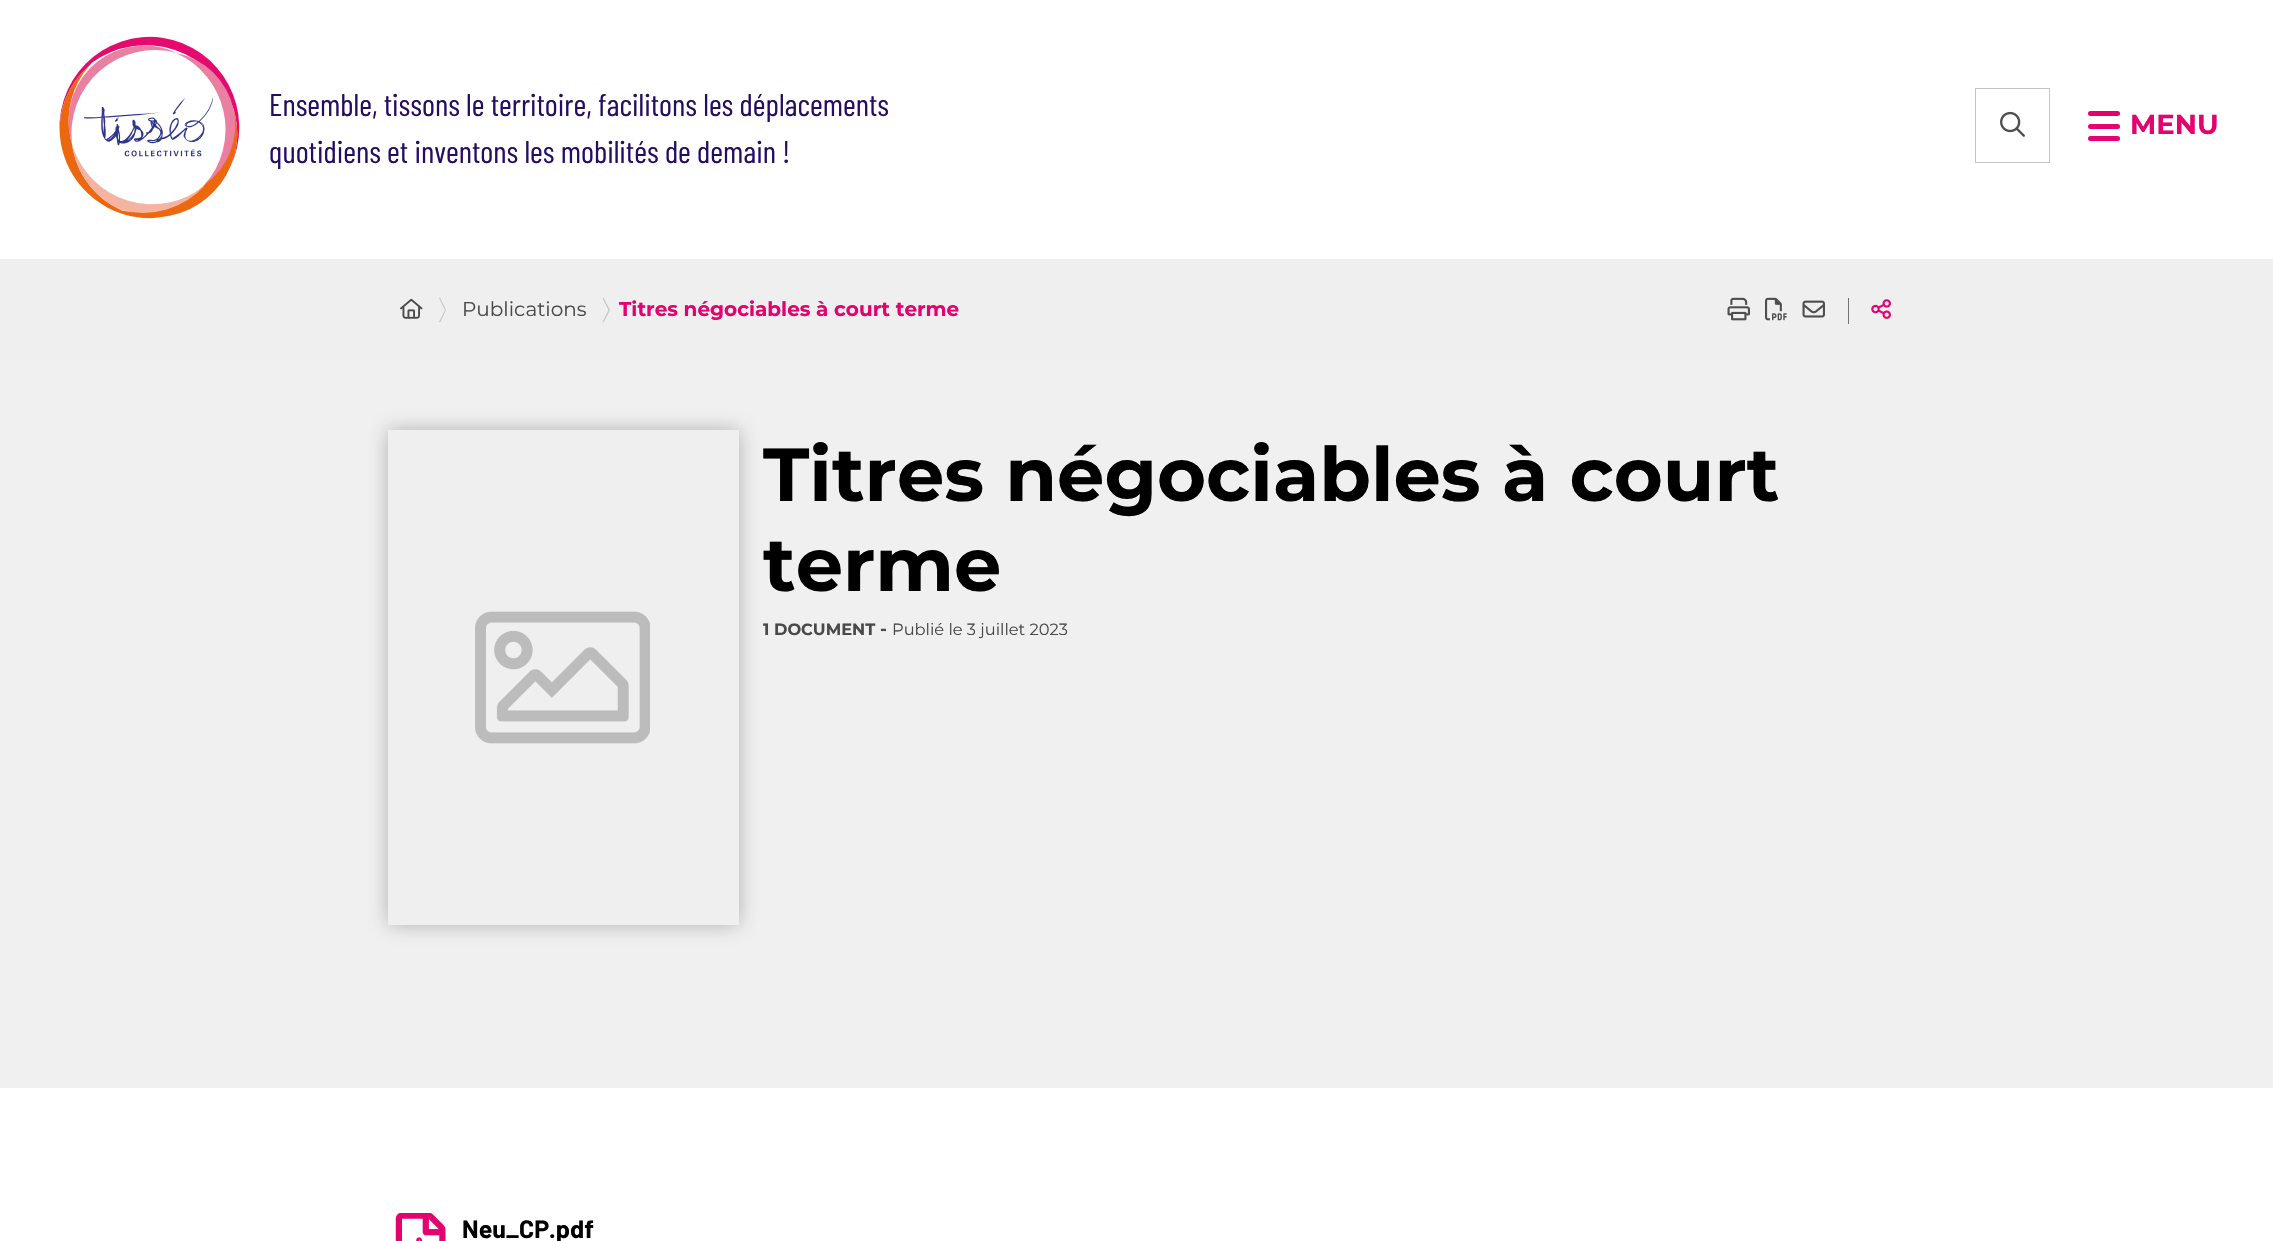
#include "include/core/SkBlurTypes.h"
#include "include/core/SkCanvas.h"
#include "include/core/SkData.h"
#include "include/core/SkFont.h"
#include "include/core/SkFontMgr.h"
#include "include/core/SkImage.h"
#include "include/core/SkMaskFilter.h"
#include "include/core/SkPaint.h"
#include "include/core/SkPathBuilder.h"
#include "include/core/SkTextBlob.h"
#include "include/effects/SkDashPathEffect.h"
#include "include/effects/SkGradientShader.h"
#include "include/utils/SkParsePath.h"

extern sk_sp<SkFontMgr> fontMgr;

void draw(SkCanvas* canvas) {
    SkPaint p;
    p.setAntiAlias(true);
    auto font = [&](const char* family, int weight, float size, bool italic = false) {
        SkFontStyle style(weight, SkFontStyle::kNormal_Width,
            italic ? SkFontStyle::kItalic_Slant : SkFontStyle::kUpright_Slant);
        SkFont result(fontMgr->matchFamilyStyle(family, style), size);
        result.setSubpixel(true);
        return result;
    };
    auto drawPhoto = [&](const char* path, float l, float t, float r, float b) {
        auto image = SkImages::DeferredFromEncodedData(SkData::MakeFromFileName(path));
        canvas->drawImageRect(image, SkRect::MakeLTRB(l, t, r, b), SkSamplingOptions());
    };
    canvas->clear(0xFFFFFFFF);
    drawPhoto("media/1.png", 59, 36, 240, 219);
    auto font1 = font("Barlow Condensed", 400, 31.25f);
    p.setColor(0xFF250E62);
    canvas->drawString("Ensemble, tissons le territoire, facilitons les déplacements", 269, 116, font1, p);
    canvas->drawString("quotidiens et inventons les mobilités de demain !", 269, 163, font1, p);
    p.setStyle(SkPaint::kStroke_Style);
    p.setStrokeWidth(1);
    p.setColor(0xFFC5C5C5);
    canvas->drawRect(SkRect::MakeLTRB(1975.5f, 88.5f, 2049.5f, 162.5f), p);
    drawPhoto("media/2.png", 2000, 111, 2025, 137);
    p.setStyle(SkPaint::kFill_Style);
    p.setColor(0xFFE3026E);
    canvas->drawRoundRect(SkRect::MakeLTRB(2088, 111, 2120, 116), 2.5f, 2.5f, p);
    canvas->drawRoundRect(SkRect::MakeLTRB(2088, 124, 2120, 129), 2.5f, 2.5f, p);
    canvas->drawRoundRect(SkRect::MakeLTRB(2088, 136, 2120, 141), 2.5f, 2.5f, p);
    auto font2 = font("Montserrat", 700, 27.5f);
    canvas->drawString("MENU", 2130, 134, font2, p);
    p.setColor(0xFFEFEFEF);
    canvas->drawRect(SkRect::MakeLTRB(0, 259, 2273, 361), p);
    drawPhoto("media/3.png", 400, 298, 423, 319);
    p.setColor(0xFFC5C5C5);
    canvas->drawPath(SkPathBuilder().moveTo(440, 322.5f).lineTo(439, 322).lineTo(445, 310).lineTo(439, 298).lineTo(440, 297.5f).lineTo(446, 310).close().detach(), p);
    auto font3 = font("Montserrat", 400, 20);
    p.setColor(0xFF494949);
    canvas->drawString("Publications", 462, 316, font3, p);
    p.setColor(0xFFC5C5C5);
    canvas->drawPath(SkPathBuilder().moveTo(603.5f, 322.5f).lineTo(602.5f, 322).lineTo(608.5f, 310).lineTo(602.5f, 298).lineTo(603.5f, 297.5f).lineTo(610, 310).close().detach(), p);
    auto font4 = font("Montserrat", 700, 20);
    p.setColor(0xFFE3026E);
    canvas->drawString("Titres négociables à court terme", 619, 316, font4, p);
    drawPhoto("media/4.png", 1727, 297, 1750, 321);
    drawPhoto("media/5.png", 1765, 297, 1787, 321);
    drawPhoto("media/6.png", 1802, 300, 1825, 318);
    p.setColor(0xFF727272);
    canvas->drawRect(SkRect::MakeLTRB(1848, 298, 1849, 324), p);
    drawPhoto("media/7.png", 1871, 299, 1891, 319);
    p.setColor(0xFFF0F0F0);
    canvas->drawRect(SkRect::MakeLTRB(0, 361, 2273, 1088), p);
    p.setColor(0x80727272);
    p.setMaskFilter(SkMaskFilter::MakeBlur(kNormal_SkBlurStyle, 9.5f));
    canvas->drawRect(SkRect::MakeLTRB(388, 430, 739, 925), p);
    p.setMaskFilter(nullptr);
    p.setColor(0xFFEFEFEF);
    canvas->drawRect(SkRect::MakeLTRB(388, 430, 739, 925), p);
    drawPhoto("media/8.png", 475, 611, 650, 744);
    auto font5 = font("Montserrat", 700, 75);
    p.setColor(0xFF000000);
    canvas->drawString("Titres négociables à court", 763, 501, font5, p);
    canvas->drawString("terme", 763, 591, font5, p);
    auto font6 = font("Montserrat", 700, 16.25f);
    p.setColor(0xFF494949);
    canvas->drawString("1 DOCUMENT", 763, 635, font6, p);
    auto font7 = font("Montserrat", 700, 18);
    canvas->drawString("-", 880, 635, font7, p);
    auto font8 = font("Montserrat", 400, 16.25f);
    canvas->drawString("Publié le 3 juillet 2023", 892, 635, font8, p);
    drawPhoto("media/9.png", 395, 1213, 446, 1241);
    auto font9 = font("Barlow", 700, 25);
    p.setColor(0xFF000000);
    canvas->drawString("Neu_CP.pdf", 462, 1238, font9, p);
}
